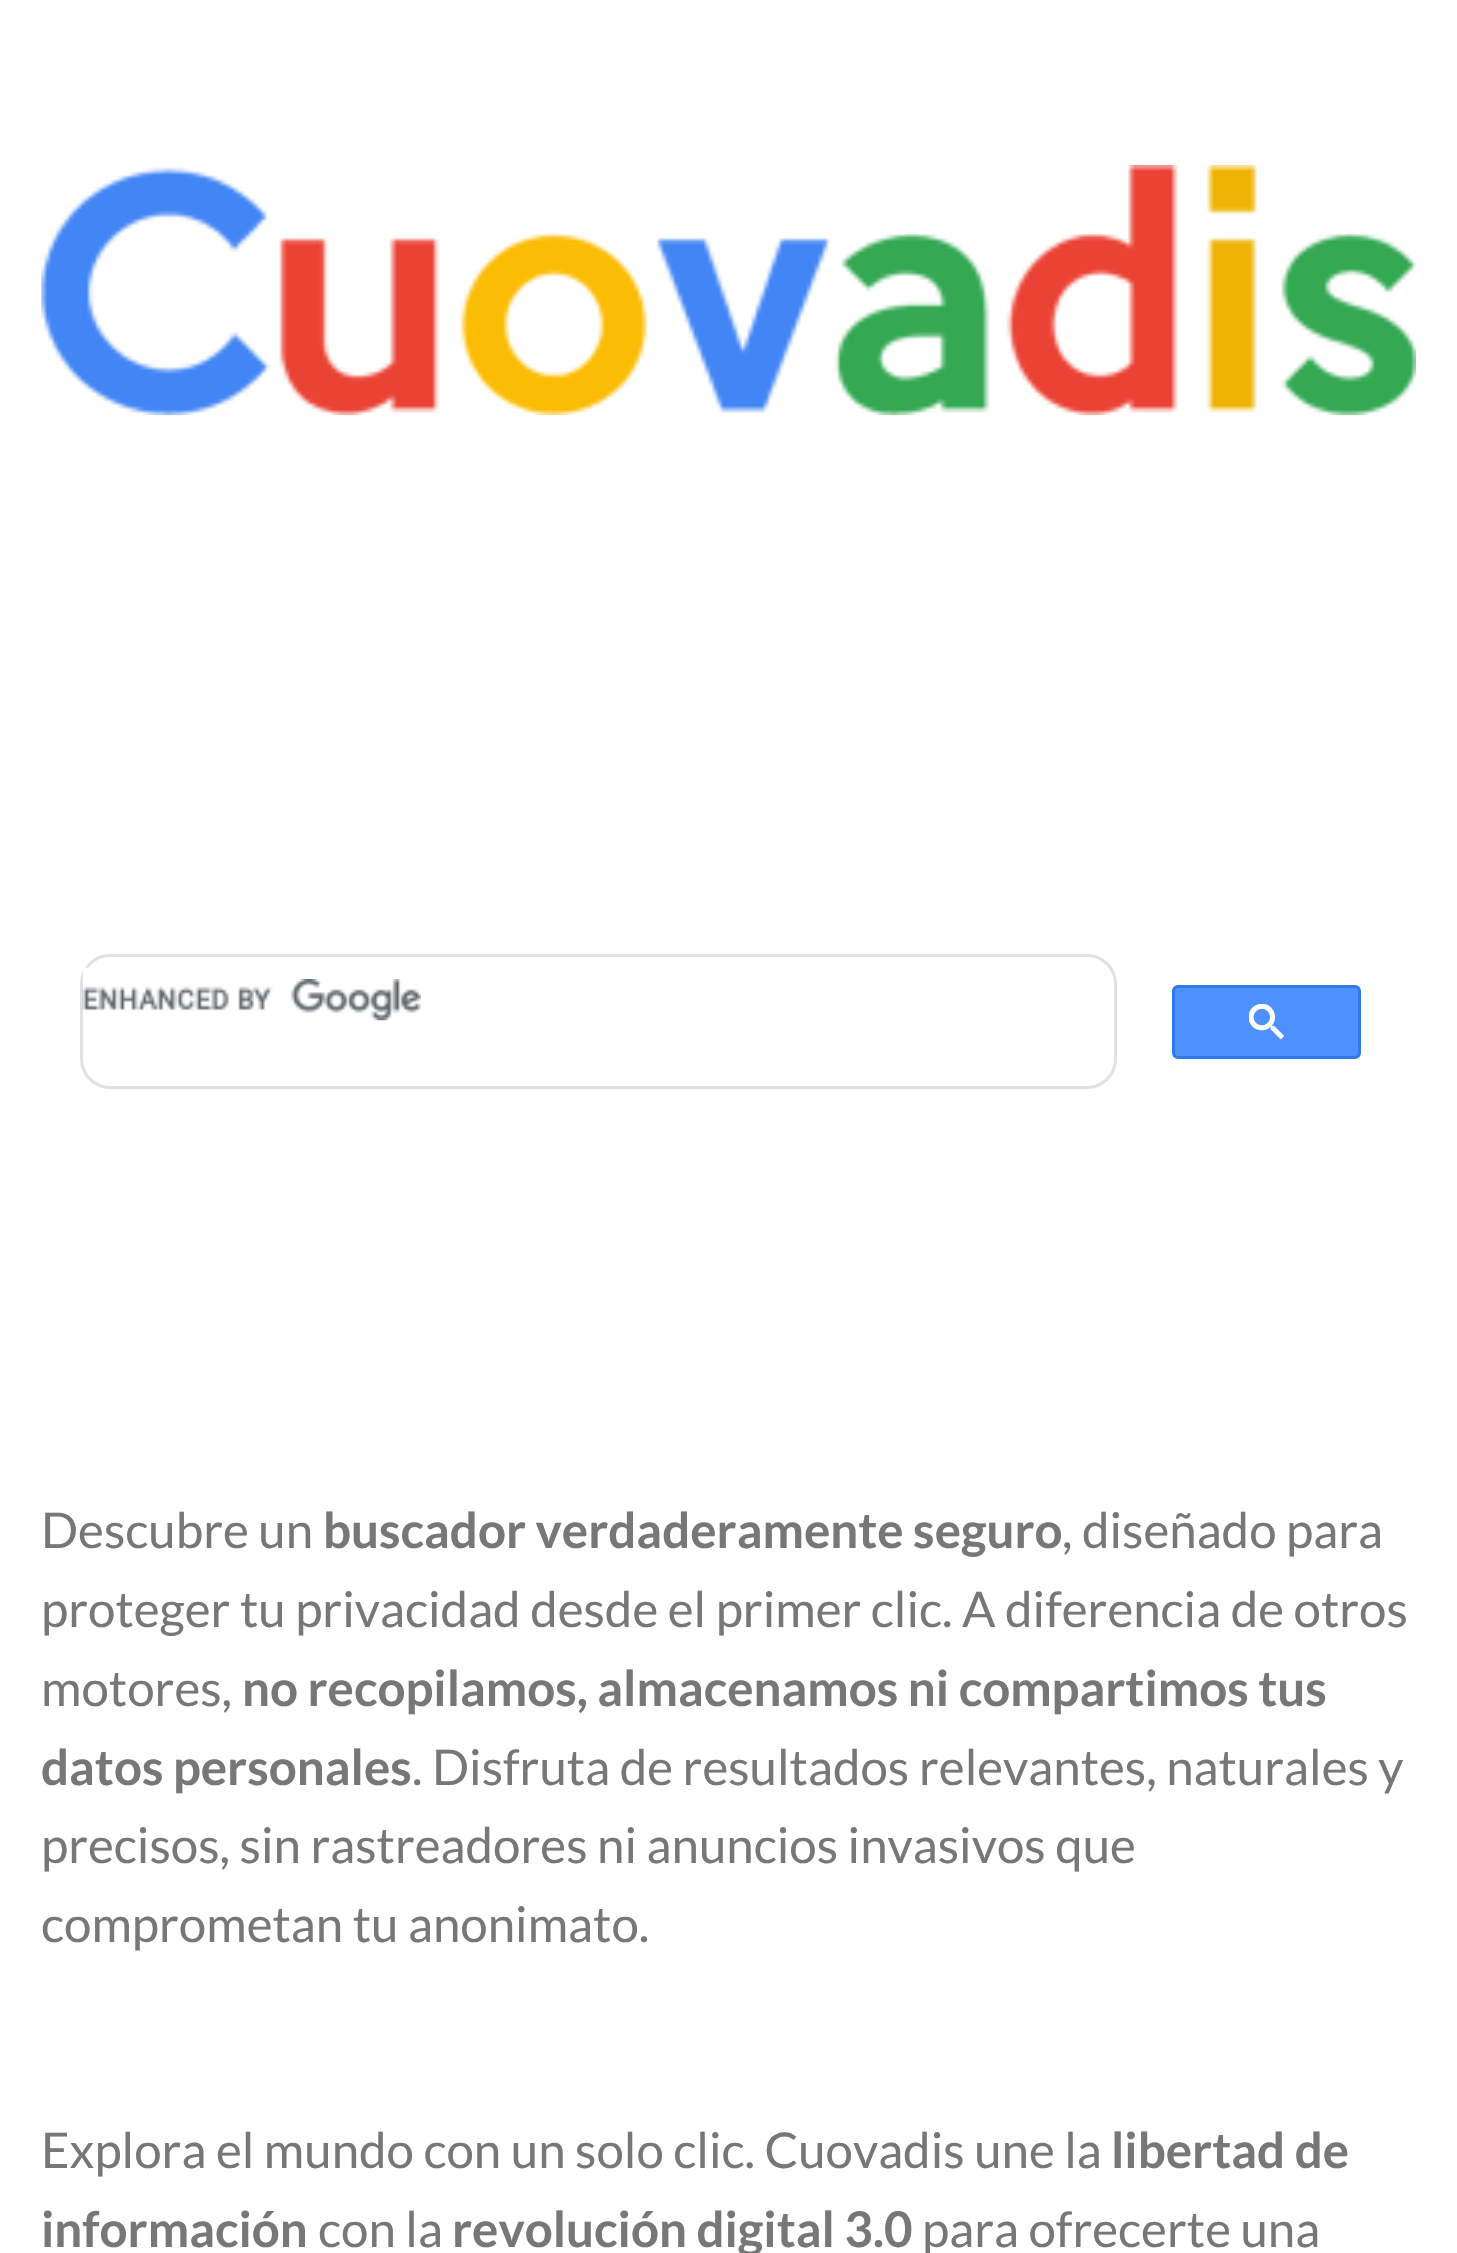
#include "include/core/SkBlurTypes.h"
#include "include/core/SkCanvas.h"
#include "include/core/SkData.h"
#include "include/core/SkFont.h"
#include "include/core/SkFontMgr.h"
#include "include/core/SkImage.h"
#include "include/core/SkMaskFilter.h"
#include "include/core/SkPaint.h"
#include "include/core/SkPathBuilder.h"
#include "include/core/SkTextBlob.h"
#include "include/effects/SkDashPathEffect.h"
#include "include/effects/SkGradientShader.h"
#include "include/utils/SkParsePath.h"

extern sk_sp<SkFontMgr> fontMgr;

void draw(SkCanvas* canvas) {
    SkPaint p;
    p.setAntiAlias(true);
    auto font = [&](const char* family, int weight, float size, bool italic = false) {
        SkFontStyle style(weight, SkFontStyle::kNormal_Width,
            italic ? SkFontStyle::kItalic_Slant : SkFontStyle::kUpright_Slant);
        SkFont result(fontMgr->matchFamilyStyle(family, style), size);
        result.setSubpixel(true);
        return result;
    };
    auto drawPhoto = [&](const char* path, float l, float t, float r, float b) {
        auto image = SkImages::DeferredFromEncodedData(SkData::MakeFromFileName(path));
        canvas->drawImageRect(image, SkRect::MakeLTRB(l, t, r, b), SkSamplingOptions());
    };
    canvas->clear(0xFFFFFFFF);
    drawPhoto("media/1.png", 41, 165, 1417, 416);
    p.setStyle(SkPaint::kStroke_Style);
    p.setStrokeWidth(3);
    p.setColor(0xFFDFE1E5);
    canvas->drawRoundRect(SkRect::MakeLTRB(81.5f, 955.5f, 1115.5f, 1087.5f), 28.5f, 28.5f, p);
    p.setStyle(SkPaint::kFill_Style);
    p.setColor(0xFFFFFFFF);
    canvas->drawRect(SkRect::MakeLTRB(83, 968, 88, 982), p);
    drawPhoto("media/2.png", 82, 979, 421, 1021);
    p.setColor(0xFF4D90FE);
    canvas->drawRoundRect(SkRect::MakeLTRB(1173.5f, 986.5f, 1359.5f, 1057.5f), 4.5f, 4.5f, p);
    p.setStyle(SkPaint::kStroke_Style);
    p.setColor(0xFF3079ED);
    canvas->drawRoundRect(SkRect::MakeLTRB(1173.5f, 986.5f, 1359.5f, 1057.5f), 4.5f, 4.5f, p);
    drawPhoto("media/3.png", 1249, 1004, 1284, 1040);
    auto font1 = font("Lato", 400, 49.25f);
    p.setStyle(SkPaint::kFill_Style);
    p.setColor(0xFF777777);
    canvas->drawString("Descubre un", 41, 1548, font1, p);
    auto font2 = font("Lato", 700, 49.25f);
    canvas->drawString("buscador verdaderamente seguro", 323, 1548, font2, p);
    {
        const struct { const char* s; float x, y; } items[] = {
            {", diseñado para", 1062, 1548},
            {"proteger tu privacidad desde el primer clic.", 41, 1627},
            {"A diferencia de otros", 962, 1627},
            {"motores,", 41, 1706},
        };
        for (auto [s, x, y] : items) {
            canvas->drawString(s, x, y, font1, p);
        }
    }
    canvas->drawString("no recopilamos, almacenamos ni compartimos tus", 242, 1706, font2, p);
    canvas->drawString("datos personales", 41, 1785, font2, p);
    {
        const struct { const char* s; float x, y; } items[] = {
            {". Disfruta de resultados", 412, 1785},
            {"relevantes, naturales y", 919, 1785},
            {"precisos, sin rastreadores ni anuncios invasivos que", 41, 1863},
            {"comprometan tu anonimato.", 41, 1942},
            {"Explora el mundo con un solo clic. Cuovadis une la", 41, 2168},
        };
        for (auto [s, x, y] : items) {
            canvas->drawString(s, x, y, font1, p);
        }
    }
    canvas->drawString("libertad de", 1111, 2168, font2, p);
    canvas->drawString("información", 41, 2247, font2, p);
    canvas->drawString("con la", 318, 2247, font1, p);
    canvas->drawString("revolución digital 3.0", 452, 2247, font2, p);
    canvas->drawString("para ofrecerte una", 922, 2247, font1, p);
}
